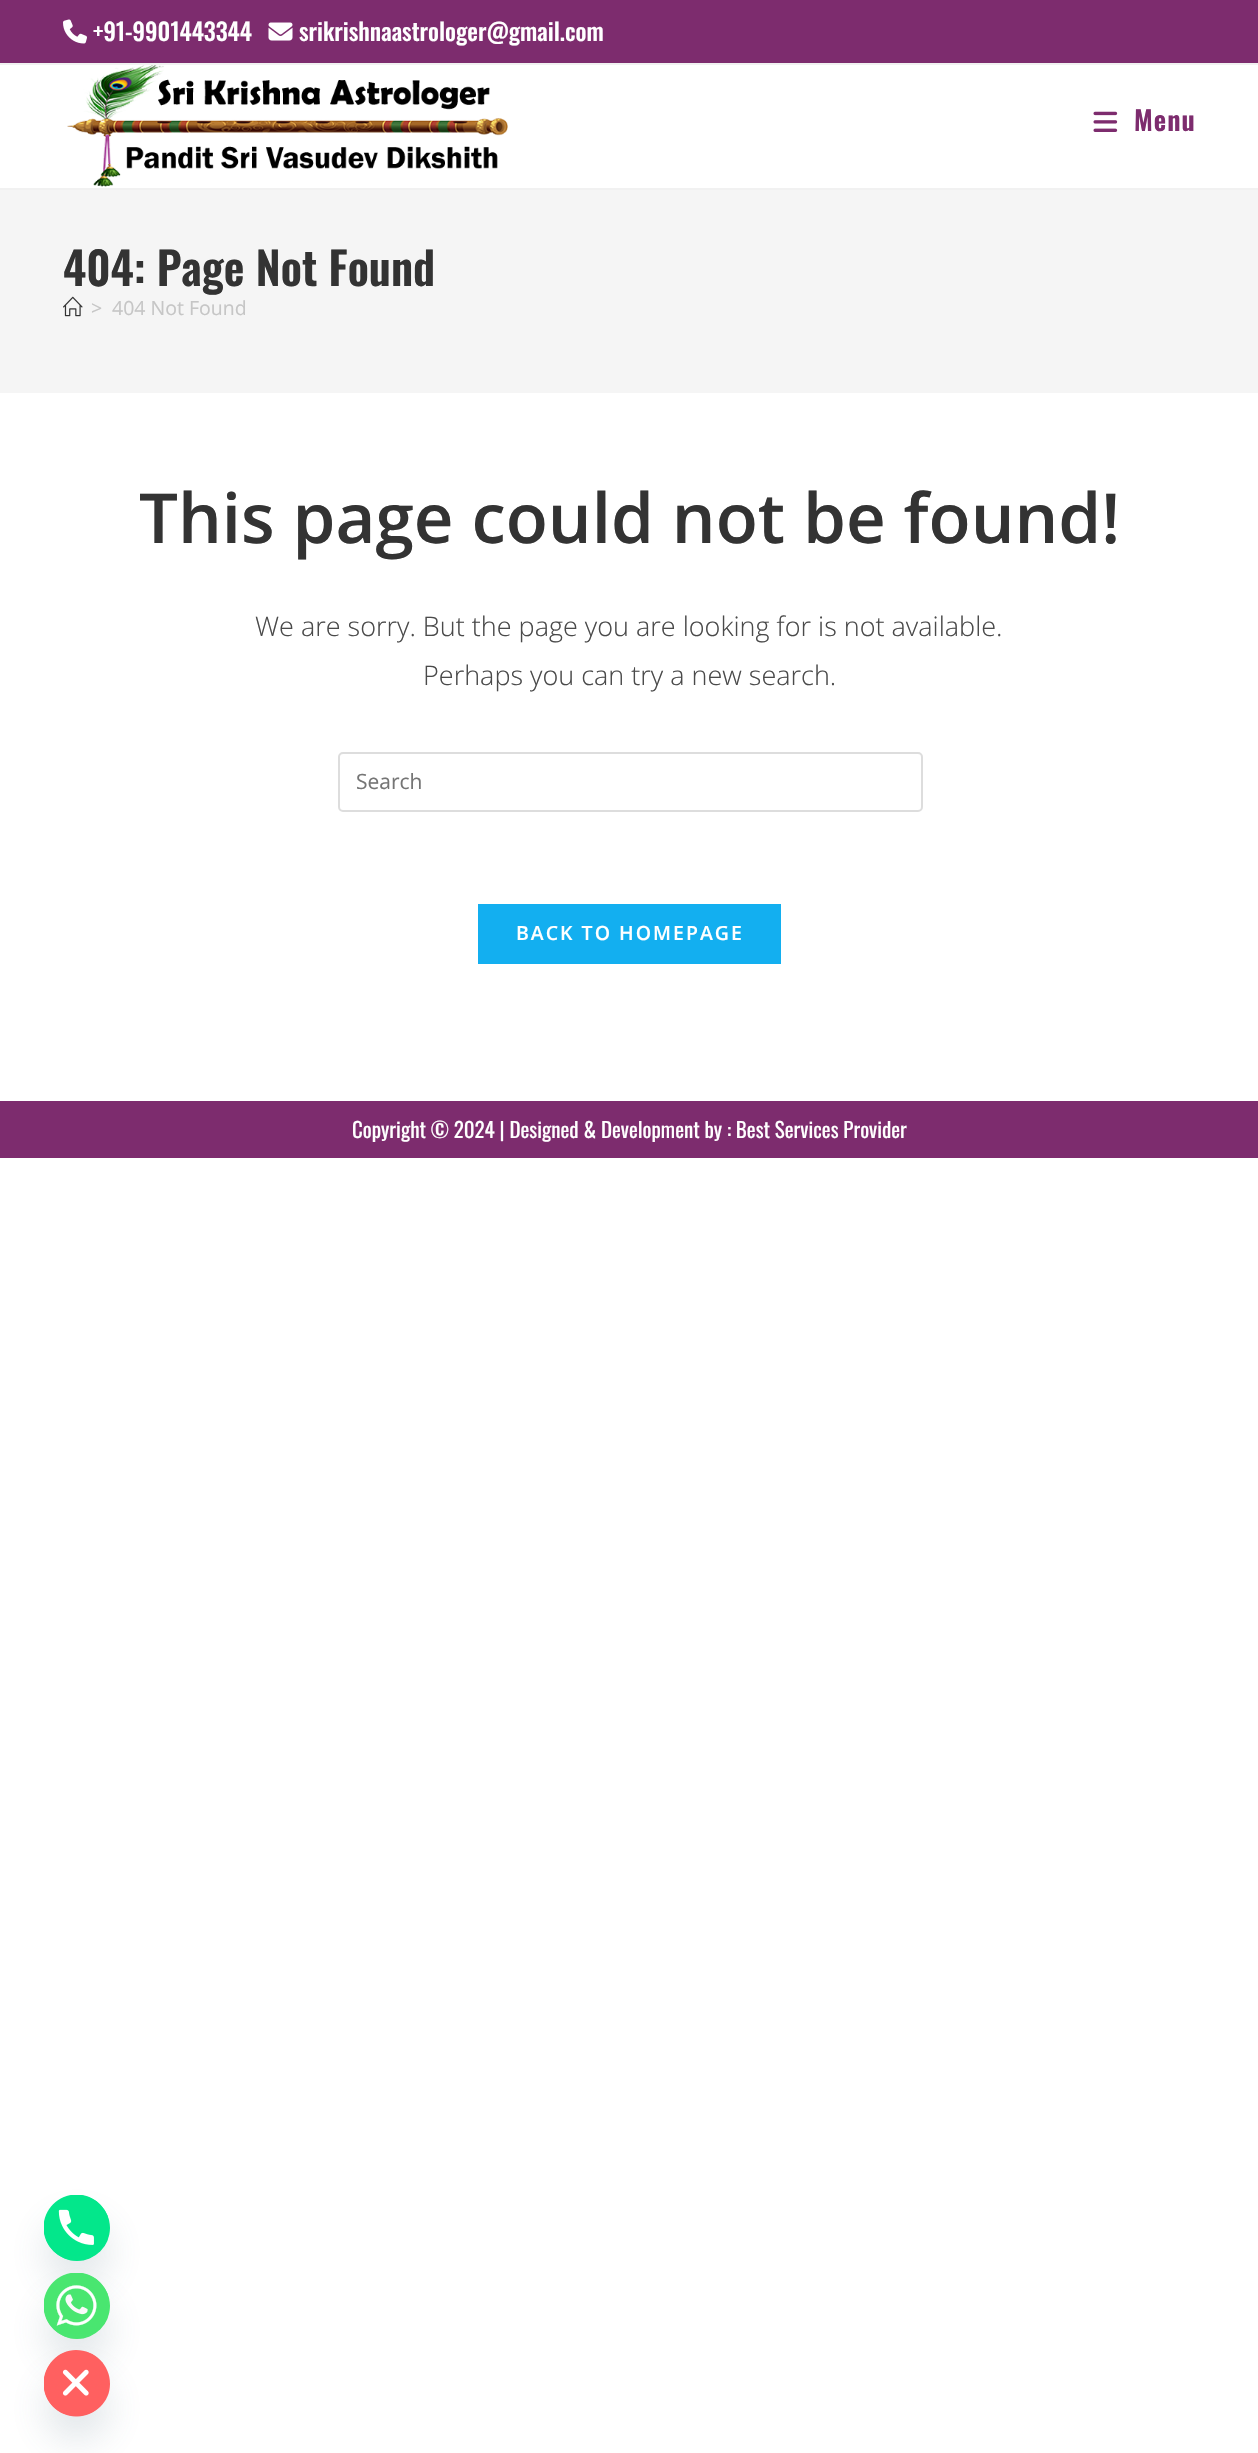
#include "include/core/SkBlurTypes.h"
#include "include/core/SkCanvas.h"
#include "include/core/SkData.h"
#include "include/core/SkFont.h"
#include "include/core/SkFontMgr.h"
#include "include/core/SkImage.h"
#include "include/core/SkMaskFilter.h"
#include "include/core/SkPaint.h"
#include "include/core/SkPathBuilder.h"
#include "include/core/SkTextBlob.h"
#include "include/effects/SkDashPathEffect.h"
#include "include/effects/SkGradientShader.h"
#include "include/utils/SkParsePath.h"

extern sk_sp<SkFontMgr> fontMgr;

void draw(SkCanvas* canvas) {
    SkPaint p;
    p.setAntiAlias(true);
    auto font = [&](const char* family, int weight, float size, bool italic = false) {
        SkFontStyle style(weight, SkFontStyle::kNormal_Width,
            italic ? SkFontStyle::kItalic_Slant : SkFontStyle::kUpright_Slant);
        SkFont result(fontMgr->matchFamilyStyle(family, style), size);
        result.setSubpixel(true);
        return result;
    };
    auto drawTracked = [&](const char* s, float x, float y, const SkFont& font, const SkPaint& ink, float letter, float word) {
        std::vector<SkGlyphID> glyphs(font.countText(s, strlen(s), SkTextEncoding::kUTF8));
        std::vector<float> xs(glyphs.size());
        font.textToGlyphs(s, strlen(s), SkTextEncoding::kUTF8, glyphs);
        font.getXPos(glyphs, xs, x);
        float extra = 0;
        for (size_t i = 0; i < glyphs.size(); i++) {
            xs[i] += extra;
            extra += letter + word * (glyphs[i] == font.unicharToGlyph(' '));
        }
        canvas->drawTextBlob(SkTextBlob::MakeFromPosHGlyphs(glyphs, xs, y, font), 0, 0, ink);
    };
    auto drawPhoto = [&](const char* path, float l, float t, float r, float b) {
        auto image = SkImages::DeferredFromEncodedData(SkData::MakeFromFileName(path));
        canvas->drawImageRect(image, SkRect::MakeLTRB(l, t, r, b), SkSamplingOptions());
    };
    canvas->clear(0xFFFFFFFF);
    p.setColor(0xFF7D2C6E);
    canvas->drawRect(SkRect::MakeLTRB(0, 0, 1258, 63), p);
    p.setColor(0xFFF1F1F1);
    canvas->drawRect(SkRect::MakeLTRB(0, 63, 1258, 65), p);
    drawPhoto("media/1.png", 63, 19, 87, 44);
    auto font1 = font("Oswald", 500, 24);
    p.setColor(0xFFFFFFFF);
    canvas->drawString("+91-9901443344", 93, 41, font1, p);
    drawPhoto("media/2.png", 268, 22, 293, 41);
    canvas->drawString("srikrishnaastrologer@gmail.com", 299, 41, font1, p);
    p.setColor(0xFFF1F1F1);
    canvas->drawRect(SkRect::MakeLTRB(0, 188, 1258, 190), p);
    drawPhoto("media/3.png", 67, 65, 508, 187);
    drawPhoto("media/4.png", 1093, 111, 1118, 132);
    auto font2 = font("Oswald", 600, 27);
    p.setColor(0xFF7D2C6E);
    drawTracked("Menu", 1134, 131, font2, p, 1, 0);
    p.setColor(0xFFF5F5F5);
    canvas->drawRect(SkRect::MakeLTRB(0, 190, 1258, 393), p);
    auto font3 = font("Oswald", 600, 45);
    p.setColor(0xFF333333);
    canvas->drawString("404: Page Not Found", 63, 286, font3, p);
    drawPhoto("media/5.png", 63, 296, 83, 317);
    auto font4 = font("Open Sans", 400, 19.5f);
    p.setColor(0xFFC6C6C6);
    canvas->drawString(">", 91, 315, font4, p);
    canvas->drawString("404 Not Found", 112, 315, font4, p);
    auto font5 = font("Open Sans", 600, 69);
    p.setColor(0xFF333333);
    canvas->drawString("This page could not be found!", 139, 543, font5, p);
    auto font6 = font("Open Sans", 300, 27);
    p.setColor(0xFF4A4A4A);
    canvas->drawString("We are sorry. But the page you are looking for is not available.", 255, 636, font6, p);
    canvas->drawString("Perhaps you can try a new search.", 423, 685, font6, p);
    p.setStyle(SkPaint::kStroke_Style);
    p.setStrokeWidth(2);
    p.setColor(0xFFDDDDDD);
    canvas->drawRoundRect(SkRect::MakeLTRB(339, 753, 922, 811), 4, 4, p);
    auto font7 = font("Open Sans", 400, 21);
    p.setStyle(SkPaint::kFill_Style);
    p.setColor(0xFF757575);
    canvas->drawString("Search", 356, 789, font7, p);
    p.setColor(0xFF13AFF0);
    canvas->drawRect(SkRect::MakeLTRB(478, 904, 781, 964), p);
    auto font8 = font("Open Sans", 600, 19.5f);
    p.setColor(0xFFFFFFFF);
    drawTracked("BACK TO HOMEPAGE", 516, 940, font8, p, 2, 0);
    p.setColor(0xFF7D2C6E);
    canvas->drawRect(SkRect::MakeLTRB(0, 1101, 1258, 1158), p);
    auto font9 = font("Oswald", 400, 21);
    p.setColor(0xFFFFFFFF);
    canvas->drawString("Copyright © 2024 | Designed & Development by : Best Services Provider", 352, 1138, font9, p);
    p.setColor(0x2949687E);
    p.setMaskFilter(SkMaskFilter::MakeBlur(kNormal_SkBlurStyle, 18));
    canvas->drawRoundRect(SkRect::MakeLTRB(44, 2219, 110, 2285), 33, 33, p);
    p.setMaskFilter(nullptr);
    p.setColor(0xFF03E78B);
    canvas->drawCircle(77, 2228, 33, p);
    drawPhoto("media/6.png", 44, 2195, 110, 2261);
    p.setColor(0x2949687E);
    p.setMaskFilter(SkMaskFilter::MakeBlur(kNormal_SkBlurStyle, 18));
    canvas->drawRoundRect(SkRect::MakeLTRB(44, 2297, 110, 2363), 33, 33, p);
    p.setMaskFilter(nullptr);
    p.setColor(0xFF49E670);
    canvas->drawCircle(77, 2306, 33, p);
    drawPhoto("media/7.png", 44, 2273, 110, 2339);
    p.setColor(0x2949687E);
    p.setMaskFilter(SkMaskFilter::MakeBlur(kNormal_SkBlurStyle, 18));
    canvas->drawRoundRect(SkRect::MakeLTRB(44, 2375, 110, 2441), 33, 33, p);
    p.setMaskFilter(nullptr);
    p.setColor(0xFFFF6060);
    canvas->drawPath(SkPathBuilder().moveTo(76, 2416).cubicTo(58, 2416, 44, 2402, 44, 2384).cubicTo(44, 2365, 58, 2350, 76, 2350).cubicTo(95, 2350, 110, 2365, 110, 2384).cubicTo(110, 2402, 95, 2416, 76, 2416).close().detach(), p);
    drawPhoto("media/8.png", 44, 2352, 103, 2417);
}
